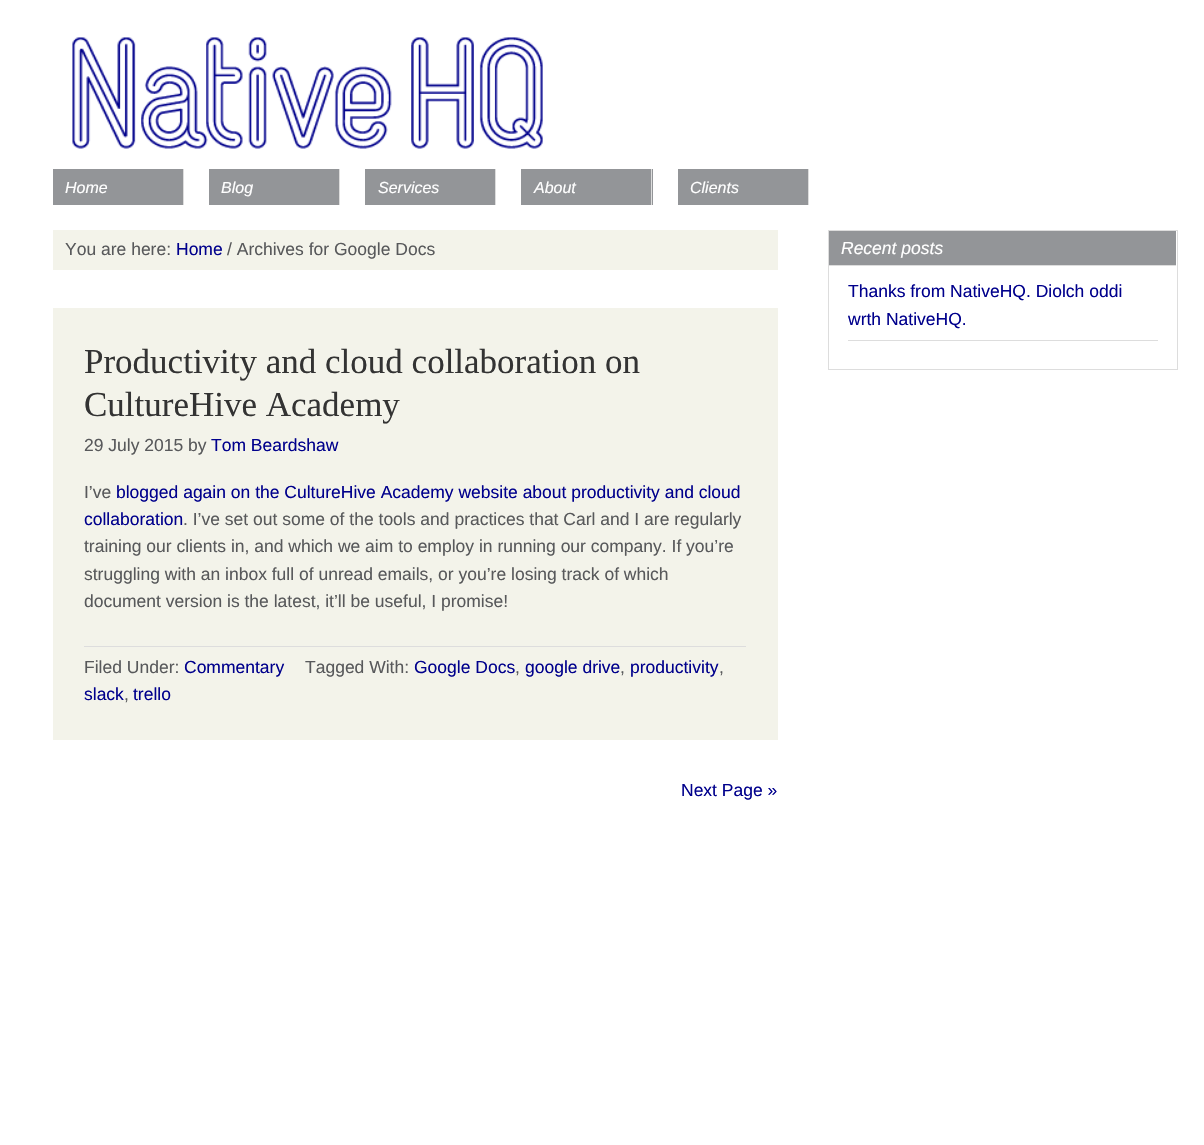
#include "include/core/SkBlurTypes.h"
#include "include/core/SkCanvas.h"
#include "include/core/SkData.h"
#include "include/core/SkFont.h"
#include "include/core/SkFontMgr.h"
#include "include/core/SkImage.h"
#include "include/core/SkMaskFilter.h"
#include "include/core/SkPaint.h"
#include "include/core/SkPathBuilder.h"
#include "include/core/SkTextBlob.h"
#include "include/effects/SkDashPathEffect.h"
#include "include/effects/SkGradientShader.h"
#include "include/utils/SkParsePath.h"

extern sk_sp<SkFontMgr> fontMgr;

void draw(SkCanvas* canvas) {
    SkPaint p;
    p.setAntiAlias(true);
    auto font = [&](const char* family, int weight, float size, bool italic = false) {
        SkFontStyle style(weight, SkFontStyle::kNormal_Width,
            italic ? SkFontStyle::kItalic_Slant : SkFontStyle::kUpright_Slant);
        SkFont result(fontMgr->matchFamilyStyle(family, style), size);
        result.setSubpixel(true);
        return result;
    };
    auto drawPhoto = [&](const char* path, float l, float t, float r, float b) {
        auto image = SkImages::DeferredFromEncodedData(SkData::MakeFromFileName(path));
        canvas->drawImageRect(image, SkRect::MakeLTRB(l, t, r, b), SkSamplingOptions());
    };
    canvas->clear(0xFFFFFFFF);
    drawPhoto("media/1.png", 72, 37, 543, 149);
    p.setColor(0xFF939598);
    canvas->drawRect(SkRect::MakeLTRB(53, 169, 183, 205), p);
    p.setColor(0xFFDDDDDD);
    canvas->drawRect(SkRect::MakeLTRB(183, 169, 184, 205), p);
    auto font1 = font("Liberation Sans", 400, 16, true);
    p.setColor(0xFFFFFFFF);
    canvas->drawString("Home", 65, 193, font1, p);
    p.setColor(0xFF939598);
    canvas->drawRect(SkRect::MakeLTRB(209, 169, 339, 205), p);
    p.setColor(0xFFDDDDDD);
    canvas->drawRect(SkRect::MakeLTRB(339, 169, 340, 205), p);
    p.setColor(0xFFFFFFFF);
    canvas->drawString("Blog", 221, 193, font1, p);
    p.setColor(0xFF939598);
    canvas->drawRect(SkRect::MakeLTRB(365, 169, 495, 205), p);
    p.setColor(0xFFDDDDDD);
    canvas->drawRect(SkRect::MakeLTRB(495, 169, 496, 205), p);
    p.setColor(0xFFFFFFFF);
    canvas->drawString("Services", 378, 193, font1, p);
    p.setColor(0xFF939598);
    canvas->drawRect(SkRect::MakeLTRB(521, 169, 653, 205), p);
    p.setColor(0xFFDDDDDD);
    canvas->drawRect(SkRect::MakeLTRB(651, 169, 652, 205), p);
    p.setColor(0xFFFFFFFF);
    canvas->drawString("About", 534, 193, font1, p);
    p.setColor(0xFF939598);
    canvas->drawRect(SkRect::MakeLTRB(678, 169, 808, 205), p);
    p.setColor(0xFFDDDDDD);
    canvas->drawRect(SkRect::MakeLTRB(808, 169, 809, 205), p);
    p.setColor(0xFFFFFFFF);
    canvas->drawString("Clients", 690, 193, font1, p);
    p.setColor(0xFFF3F3EA);
    canvas->drawRect(SkRect::MakeLTRB(53, 230, 778, 270), p);
    auto font2 = font("Liberation Sans", 400, 17.5f);
    p.setColor(0xFF58595B);
    canvas->drawString("You are here:", 65, 255, font2, p);
    p.setColor(0xFF00008C);
    canvas->drawString("Home", 176, 255, font2, p);
    p.setColor(0xFF58595B);
    canvas->drawString("/ Archives for Google Docs", 227, 255, font2, p);
    p.setColor(0xFFF3F3EA);
    canvas->drawRect(SkRect::MakeLTRB(53, 308, 778, 740), p);
    auto font3 = font("Liberation Serif", 400, 35);
    p.setColor(0xFF333333);
    canvas->drawString("Productivity and cloud collaboration on", 84, 373, font3, p);
    canvas->drawString("CultureHive Academy", 84, 416, font3, p);
    p.setColor(0xFF58595B);
    canvas->drawString("29 July 2015 by", 84, 451, font2, p);
    p.setColor(0xFF00008C);
    canvas->drawString("Tom Beardshaw", 211, 451, font2, p);
    p.setColor(0xFF58595B);
    canvas->drawString("I’ve", 84, 498, font2, p);
    p.setColor(0xFF00008C);
    canvas->drawString("blogged again on the CultureHive Academy website about productivity and cloud", 116, 498, font2, p);
    canvas->drawString("collaboration", 84, 525, font2, p);
    p.setColor(0xFF58595B);
    {
        const struct { const char* s; float x, y; } items[] = {
            {". I’ve set out some of the tools and practices that Carl and I are regularly", 183, 525},
            {"training our clients in, and which we aim to employ in running our company. If you’re", 84, 552},
            {"struggling with an inbox full of unread emails, or you’re losing track of which", 84, 580},
            {"document version is the latest, it’ll be useful, I promise!", 84, 607},
        };
        for (auto [s, x, y] : items) {
            canvas->drawString(s, x, y, font2, p);
        }
    }
    p.setColor(0xFFDDDDDD);
    canvas->drawRect(SkRect::MakeLTRB(84, 646, 746, 647), p);
    p.setColor(0xFF58595B);
    canvas->drawString("Filed Under:", 84, 673, font2, p);
    p.setColor(0xFF00008C);
    canvas->drawString("Commentary", 184, 673, font2, p);
    p.setColor(0xFF58595B);
    canvas->drawString("Tagged With:", 305, 673, font2, p);
    p.setColor(0xFF00008C);
    canvas->drawString("Google Docs", 414, 673, font2, p);
    p.setColor(0xFF58595B);
    canvas->drawString(",", 515, 673, font2, p);
    p.setColor(0xFF00008C);
    canvas->drawString("google drive", 525, 673, font2, p);
    p.setColor(0xFF58595B);
    canvas->drawString(",", 620, 673, font2, p);
    p.setColor(0xFF00008C);
    canvas->drawString("productivity", 630, 673, font2, p);
    p.setColor(0xFF58595B);
    canvas->drawString(",", 719, 673, font2, p);
    p.setColor(0xFF00008C);
    canvas->drawString("slack", 84, 700, font2, p);
    p.setColor(0xFF58595B);
    canvas->drawString(",", 124, 700, font2, p);
    p.setColor(0xFF00008C);
    canvas->drawString("trello", 133, 700, font2, p);
    canvas->drawString("Next Page »", 681, 796, font2, p);
    p.setStyle(SkPaint::kStroke_Style);
    p.setStrokeWidth(1);
    p.setColor(0xFFDDDDDD);
    canvas->drawRect(SkRect::MakeLTRB(828.5f, 230.5f, 1177.5f, 369.5f), p);
    p.setStyle(SkPaint::kFill_Style);
    p.setColor(0xFF939598);
    canvas->drawRect(SkRect::MakeLTRB(829, 231, 1176, 265), p);
    p.setColor(0xFFDDDDDD);
    canvas->drawRect(SkRect::MakeLTRB(829, 265, 1176, 266), p);
    auto font4 = font("Liberation Sans", 400, 17.5f, true);
    p.setColor(0xFFFFFFFF);
    canvas->drawString("Recent posts", 841, 254, font4, p);
    p.setColor(0xFFDDDDDD);
    canvas->drawRect(SkRect::MakeLTRB(848, 340, 1158, 341), p);
    p.setColor(0xFF00008C);
    canvas->drawString("Thanks from NativeHQ. Diolch oddi", 848, 297, font2, p);
    canvas->drawString("wrth NativeHQ.", 848, 325, font2, p);
}
